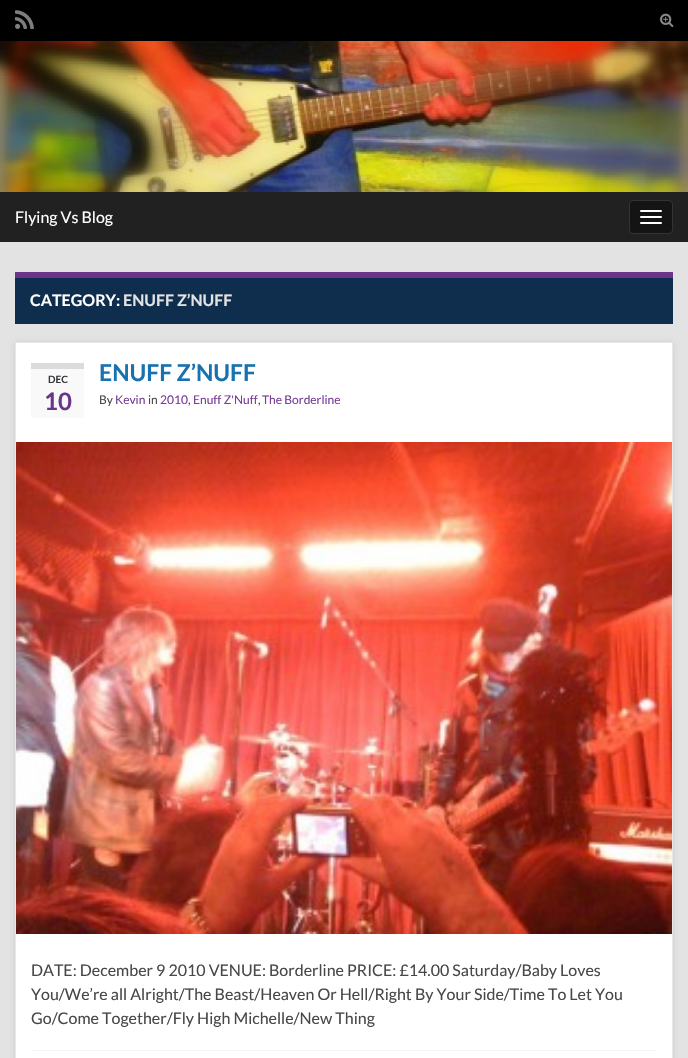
#include "include/core/SkBlurTypes.h"
#include "include/core/SkCanvas.h"
#include "include/core/SkData.h"
#include "include/core/SkFont.h"
#include "include/core/SkFontMgr.h"
#include "include/core/SkImage.h"
#include "include/core/SkMaskFilter.h"
#include "include/core/SkPaint.h"
#include "include/core/SkPathBuilder.h"
#include "include/core/SkTextBlob.h"
#include "include/effects/SkDashPathEffect.h"
#include "include/effects/SkGradientShader.h"
#include "include/utils/SkParsePath.h"

extern sk_sp<SkFontMgr> fontMgr;

void draw(SkCanvas* canvas) {
    SkPaint p;
    p.setAntiAlias(true);
    auto font = [&](const char* family, int weight, float size, bool italic = false) {
        SkFontStyle style(weight, SkFontStyle::kNormal_Width,
            italic ? SkFontStyle::kItalic_Slant : SkFontStyle::kUpright_Slant);
        SkFont result(fontMgr->matchFamilyStyle(family, style), size);
        result.setSubpixel(true);
        return result;
    };
    auto drawPhoto = [&](const char* path, float l, float t, float r, float b) {
        auto image = SkImages::DeferredFromEncodedData(SkData::MakeFromFileName(path));
        canvas->drawImageRect(image, SkRect::MakeLTRB(l, t, r, b), SkSamplingOptions());
    };
    canvas->clear(0xFF000000);
    drawPhoto("media/1.png", 15, 10, 34, 29);
    drawPhoto("media/2.png", 660, 13, 674, 27);
    drawPhoto("media/3.png", 0, 41, 688, 192);
    p.setColor(0xFF212121);
    canvas->drawRect(SkRect::MakeLTRB(0, 192, 688, 242), p);
    auto font1 = font("Lato", 400, 16);
    p.setColor(0xFFFFFFFF);
    canvas->drawString("Flying Vs Blog", 15, 223, font1, p);
    p.setColor(0xFF141414);
    canvas->drawRoundRect(SkRect::MakeLTRB(629.5f, 200.5f, 672.5f, 233.5f), 3.5f, 3.5f, p);
    p.setStyle(SkPaint::kStroke_Style);
    p.setStrokeWidth(1);
    p.setColor(0xFF333333);
    canvas->drawRoundRect(SkRect::MakeLTRB(629.5f, 200.5f, 672.5f, 233.5f), 3.5f, 3.5f, p);
    p.setStyle(SkPaint::kFill_Style);
    p.setColor(0xFFFFFFFF);
    canvas->drawRoundRect(SkRect::MakeLTRB(640, 210, 662, 212), 1, 1, p);
    canvas->drawRoundRect(SkRect::MakeLTRB(640, 216, 662, 218), 1, 1, p);
    canvas->drawRoundRect(SkRect::MakeLTRB(640, 222, 662, 224), 1, 1, p);
    {
        const struct { float l, t, r, b; SkColor color; } items[] = {
            {0, 242, 688, 1058, 0xFFE3E3E3},
            {15, 278, 673, 324, 0xFF0F2D4D},
            {15, 272, 673, 278, 0xFF6B3589},
        };
        for (auto [l, t, r, b, color] : items) {
            p.setColor(color);
            canvas->drawRect(SkRect::MakeLTRB(l, t, r, b), p);
        }
    }
    auto font2 = font("Lato", 700, 16);
    p.setColor(0xFFFFFFFF);
    canvas->drawString("CATEGORY:", 30, 306, font2, p);
    p.setColor(0xFFE3E3E3);
    canvas->drawString("ENUFF Z’NUFF", 123, 306, font2, p);
    p.setColor(0x1A000000);
    p.setMaskFilter(SkMaskFilter::MakeBlur(kNormal_SkBlurStyle, 2.5f));
    canvas->drawRect(SkRect::MakeLTRB(15, 342, 673, 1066), p);
    p.setMaskFilter(nullptr);
    p.setColor(0xFFFFFFFF);
    canvas->drawRect(SkRect::MakeLTRB(15.5f, 342.5f, 672.5f, 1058.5f), p);
    p.setStyle(SkPaint::kStroke_Style);
    p.setColor(0xFFE9E8E3);
    canvas->drawRect(SkRect::MakeLTRB(15.5f, 342.5f, 672.5f, 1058.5f), p);
    auto font3 = font("Lato", 700, 23);
    p.setStyle(SkPaint::kFill_Style);
    p.setColor(0xFF1772AF);
    canvas->drawString("ENUFF Z’NUFF", 99, 381, font3, p);
    p.setColor(0xFFF9F9F9);
    canvas->drawRect(SkRect::MakeLTRB(31, 369, 84, 418), p);
    p.setColor(0xFFDBDBDB);
    canvas->drawRect(SkRect::MakeLTRB(31, 363, 84, 369), p);
    auto font4 = font("Lato", 700, 10);
    p.setColor(0xFF3B383D);
    canvas->drawString("DEC", 48, 383, font4, p);
    auto font5 = font("Lato", 700, 24);
    p.setColor(0xFF6B3589);
    canvas->drawString("10", 44, 410, font5, p);
    auto font6 = font("Lato", 400, 12);
    p.setColor(0xFF4A474B);
    canvas->drawString("By", 99, 404, font6, p);
    p.setColor(0xFF783D98);
    canvas->drawString("Kevin", 115, 404, font6, p);
    p.setColor(0xFF4A474B);
    canvas->drawString("in", 148, 404, font6, p);
    p.setColor(0xFF783D98);
    canvas->drawString("2010", 160, 404, font6, p);
    p.setColor(0xFF4A474B);
    canvas->drawString(",", 188, 404, font6, p);
    p.setColor(0xFF783D98);
    canvas->drawString("Enuff Z'Nuff", 193, 404, font6, p);
    p.setColor(0xFF4A474B);
    canvas->drawString(",", 258, 404, font6, p);
    p.setColor(0xFF783D98);
    canvas->drawString("The Borderline", 262, 404, font6, p);
    drawPhoto("media/4.png", 16, 442, 672, 934);
    p.setColor(0xFF4A474B);
    {
        const struct { const char* s; float x, y; } items[] = {
            {"DATE: December 9 2010 VENUE: Borderline PRICE: £14.00 Saturday/Baby Loves", 31, 976},
            {"You/We’re all Alright/The Beast/Heaven Or Hell/Right By Your Side/Time To Let You", 31, 1000},
            {"Go/Come Together/Fly High Michelle/New Thing", 31, 1024},
        };
        for (auto [s, x, y] : items) {
            canvas->drawString(s, x, y, font1, p);
        }
    }
    p.setColor(0xFFF5F5F5);
    canvas->drawRect(SkRect::MakeLTRB(31, 1050, 657, 1051), p);
}
